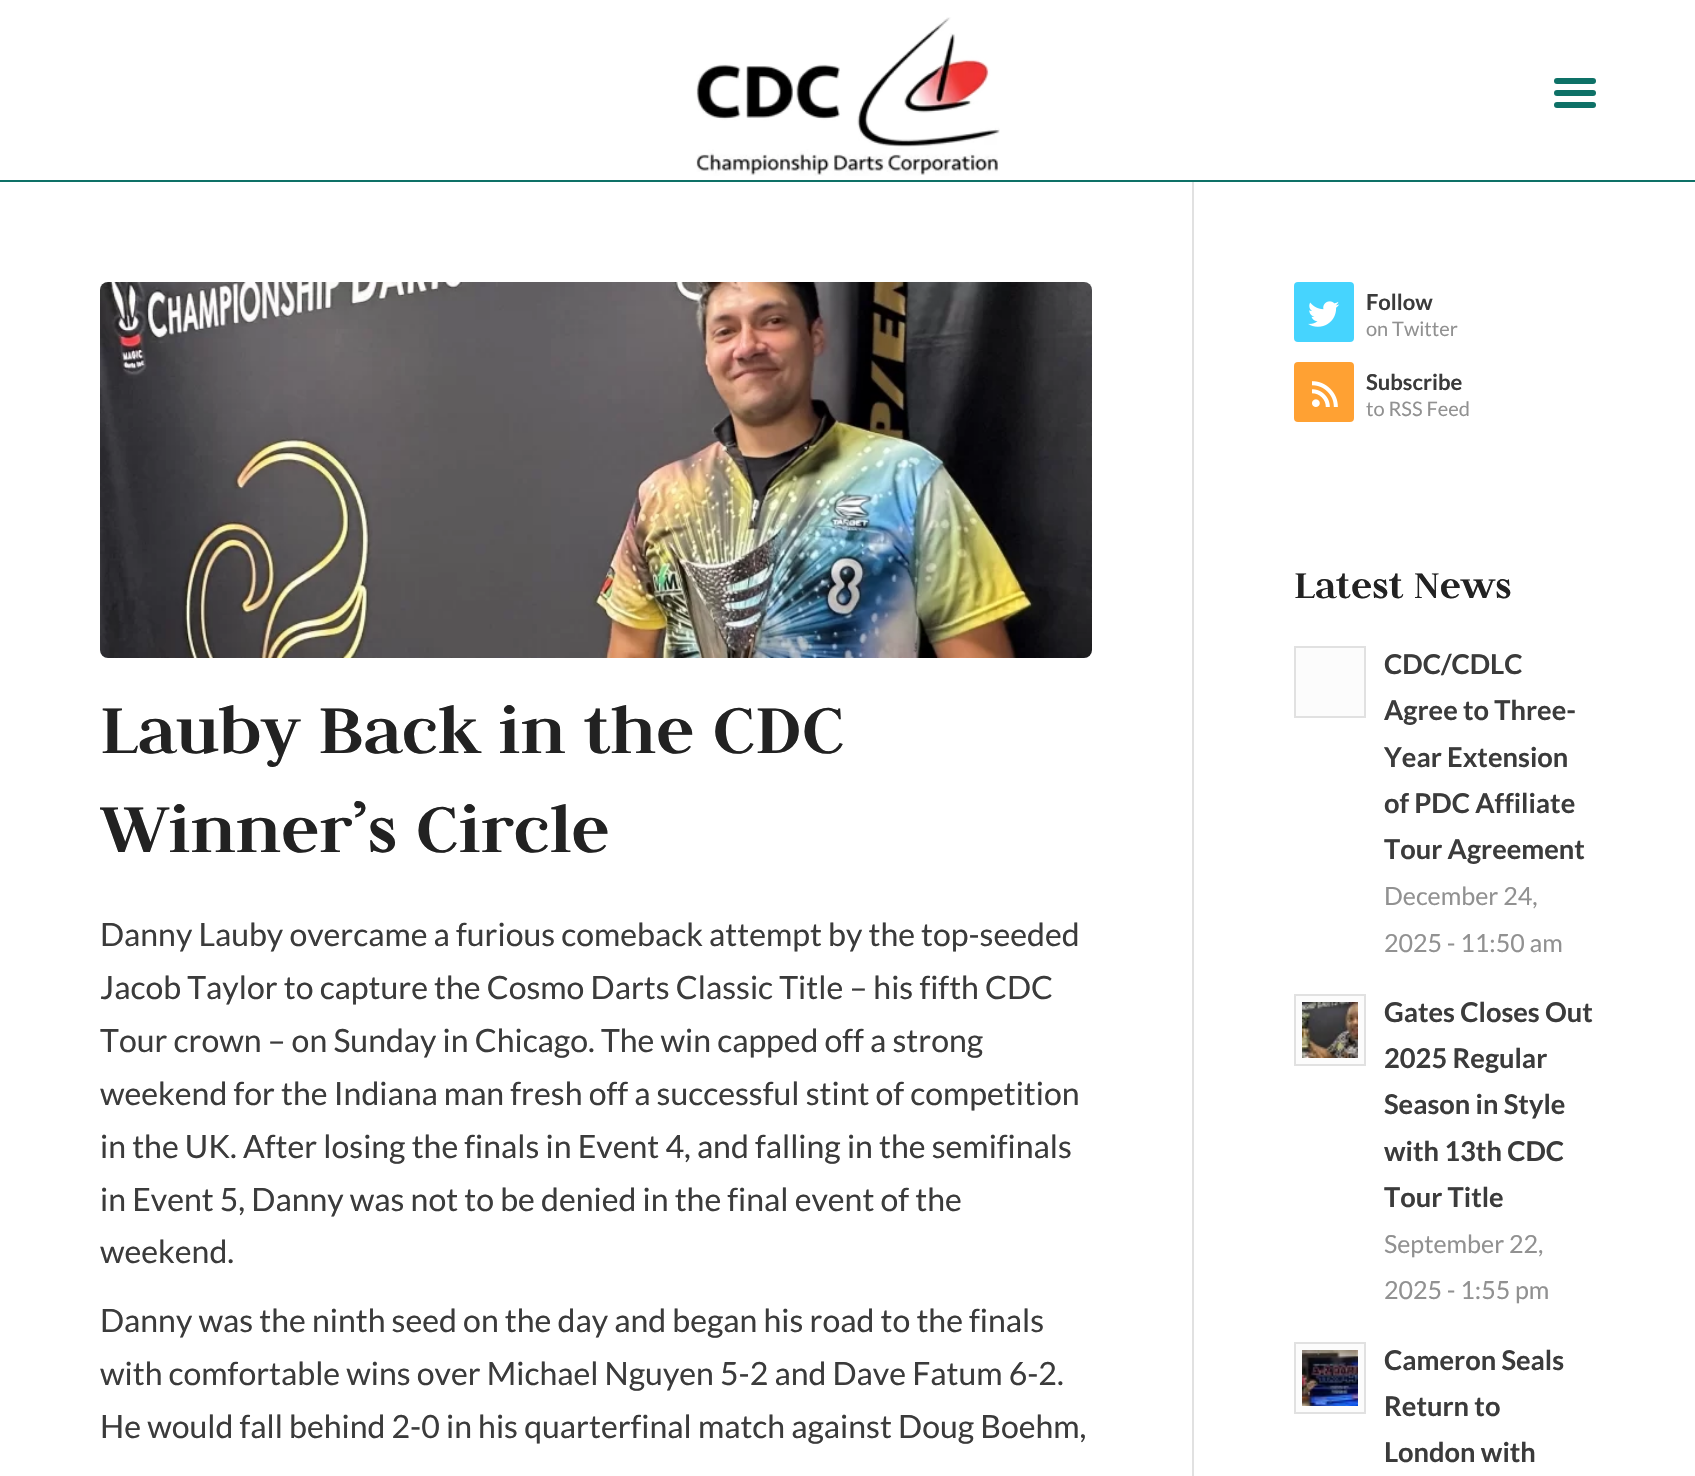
#include "include/core/SkBlurTypes.h"
#include "include/core/SkCanvas.h"
#include "include/core/SkData.h"
#include "include/core/SkFont.h"
#include "include/core/SkFontMgr.h"
#include "include/core/SkImage.h"
#include "include/core/SkMaskFilter.h"
#include "include/core/SkPaint.h"
#include "include/core/SkPathBuilder.h"
#include "include/core/SkTextBlob.h"
#include "include/effects/SkDashPathEffect.h"
#include "include/effects/SkGradientShader.h"
#include "include/utils/SkParsePath.h"

extern sk_sp<SkFontMgr> fontMgr;

void draw(SkCanvas* canvas) {
    SkPaint p;
    p.setAntiAlias(true);
    auto font = [&](const char* family, int weight, float size, bool italic = false) {
        SkFontStyle style(weight, SkFontStyle::kNormal_Width,
            italic ? SkFontStyle::kItalic_Slant : SkFontStyle::kUpright_Slant);
        SkFont result(fontMgr->matchFamilyStyle(family, style), size);
        result.setSubpixel(true);
        return result;
    };
    auto drawPhoto = [&](const char* path, float l, float t, float r, float b) {
        auto image = SkImages::DeferredFromEncodedData(SkData::MakeFromFileName(path));
        canvas->drawImageRect(image, SkRect::MakeLTRB(l, t, r, b), SkSamplingOptions());
    };
    canvas->clear(0xFFFFFFFF);
    p.setColor(0xFF0E7167);
    canvas->drawRect(SkRect::MakeLTRB(0, 180, 1695, 182), p);
    drawPhoto("media/1.png", 696, 17, 1000, 176);
    canvas->drawRoundRect(SkRect::MakeLTRB(1554, 90, 1596, 96), 3, 3, p);
    canvas->drawRoundRect(SkRect::MakeLTRB(1554, 78, 1596, 84), 3, 3, p);
    canvas->drawRoundRect(SkRect::MakeLTRB(1554, 102, 1596, 108), 3, 3, p);
    p.setColor(0xFFE1E1E1);
    canvas->drawRect(SkRect::MakeLTRB(1192, 182, 1194, 1476), p);
    drawPhoto("media/2.png", 100, 282, 1092, 658);
    auto font1 = font("Judson", 700, 76);
    p.setColor(0xFF222222);
    canvas->drawString("Lauby Back in the CDC", 100, 753, font1, p);
    canvas->save();
    canvas->clipRect(SkRect::MakeLTRB(100, 678, 1192, 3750));
    canvas->drawString("Winner’s Circle", 100, 852, font1, p);
    canvas->restore();
    auto font2 = font("Lato", 400, 32);
    p.setColor(0xFF3B3B3B);
    {
        const struct { const char* s; float x, y; } items[] = {
            {"Danny Lauby overcame a furious comeback attempt by the top-seeded", 100, 946},
            {"Jacob Taylor to capture the Cosmo Darts Classic Title – his fifth CDC", 100, 999},
            {"Tour crown – on Sunday in Chicago. The win capped off a strong", 100, 1052},
            {"weekend for the Indiana man fresh off a successful stint of competition", 100, 1105},
            {"in the UK. After losing the finals in Event 4, and falling in the semifinals", 100, 1158},
            {"in Event 5, Danny was not to be denied in the final event of the", 100, 1211},
            {"weekend.", 100, 1263},
            {"Danny was the ninth seed on the day and began his road to the finals", 100, 1332},
            {"with comfortable wins over Michael Nguyen 5-2 and Dave Fatum 6-2.", 100, 1385},
            {"He would fall behind 2-0 in his quarterfinal match against Doug Boehm,", 100, 1438},
        };
        for (auto [s, x, y] : items) {
            canvas->drawString(s, x, y, font2, p);
        }
    }
    p.setColor(0xFF46D4FE);
    canvas->drawRoundRect(SkRect::MakeLTRB(1294, 282, 1354, 342), 4, 4, p);
    drawPhoto("media/3.png", 1308, 301, 1340, 327);
    auto font3 = font("Lato", 700, 22);
    p.setColor(0xFF3B3B3B);
    canvas->drawString("Follow", 1366, 310, font3, p);
    auto font4 = font("Lato", 400, 20);
    p.setColor(0xFF919191);
    canvas->drawString("on Twitter", 1366, 336, font4, p);
    p.setColor(0xFFFFA133);
    canvas->drawRoundRect(SkRect::MakeLTRB(1294, 362, 1354, 422), 4, 4, p);
    drawPhoto("media/4.png", 1312, 381, 1338, 407);
    p.setColor(0xFF3B3B3B);
    canvas->drawString("Subscribe", 1366, 390, font3, p);
    p.setColor(0xFF919191);
    canvas->drawString("to RSS Feed", 1366, 416, font4, p);
    auto font5 = font("Judson", 700, 42);
    p.setColor(0xFF222222);
    canvas->drawString("Latest News", 1294, 598, font5, p);
    p.setColor(0xFFFCFCFC);
    canvas->drawRect(SkRect::MakeLTRB(1295, 647, 1365, 717), p);
    p.setStyle(SkPaint::kStroke_Style);
    p.setStrokeWidth(2);
    p.setColor(0xFFE1E1E1);
    canvas->drawRect(SkRect::MakeLTRB(1295, 647, 1365, 717), p);
    auto font6 = font("Lato", 700, 27.25f);
    p.setStyle(SkPaint::kFill_Style);
    p.setColor(0xFF3B3B3B);
    {
        const struct { const char* s; float x, y; } items[] = {
            {"CDC/CDLC", 1384, 674},
            {"Agree to Three-", 1384, 720},
            {"Year Extension", 1384, 767},
            {"of PDC Affiliate", 1384, 813},
            {"Tour Agreement", 1384, 859},
        };
        for (auto [s, x, y] : items) {
            canvas->drawString(s, x, y, font6, p);
        }
    }
    auto font7 = font("Lato", 400, 25);
    p.setColor(0xFF919191);
    canvas->drawString("December 24,", 1384, 905, font7, p);
    canvas->drawString("2025 - 11:50 am", 1384, 952, font7, p);
    p.setColor(0xFFFCFCFC);
    canvas->drawRect(SkRect::MakeLTRB(1295, 995, 1365, 1065), p);
    p.setStyle(SkPaint::kStroke_Style);
    p.setColor(0xFFE1E1E1);
    canvas->drawRect(SkRect::MakeLTRB(1295, 995, 1365, 1065), p);
    drawPhoto("media/5.png", 1302, 1002, 1358, 1058);
    p.setStyle(SkPaint::kFill_Style);
    p.setColor(0xFF3B3B3B);
    {
        const struct { const char* s; float x, y; } items[] = {
            {"Gates Closes Out", 1384, 1022},
            {"2025 Regular", 1384, 1068},
            {"Season in Style", 1384, 1114},
            {"with 13th CDC", 1384, 1161},
            {"Tour Title", 1384, 1207},
        };
        for (auto [s, x, y] : items) {
            canvas->drawString(s, x, y, font6, p);
        }
    }
    p.setColor(0xFF919191);
    canvas->drawString("September 22,", 1384, 1253, font7, p);
    canvas->drawString("2025 - 1:55 pm", 1384, 1299, font7, p);
    p.setColor(0xFFFCFCFC);
    canvas->drawRect(SkRect::MakeLTRB(1295, 1343, 1365, 1413), p);
    p.setStyle(SkPaint::kStroke_Style);
    p.setColor(0xFFE1E1E1);
    canvas->drawRect(SkRect::MakeLTRB(1295, 1343, 1365, 1413), p);
    drawPhoto("media/6.png", 1302, 1350, 1358, 1406);
    p.setStyle(SkPaint::kFill_Style);
    p.setColor(0xFF3B3B3B);
    {
        const struct { const char* s; float x, y; } items[] = {
            {"Cameron Seals", 1384, 1370},
            {"Return to", 1384, 1416},
            {"London with", 1384, 1462},
        };
        for (auto [s, x, y] : items) {
            canvas->drawString(s, x, y, font6, p);
        }
    }
}
